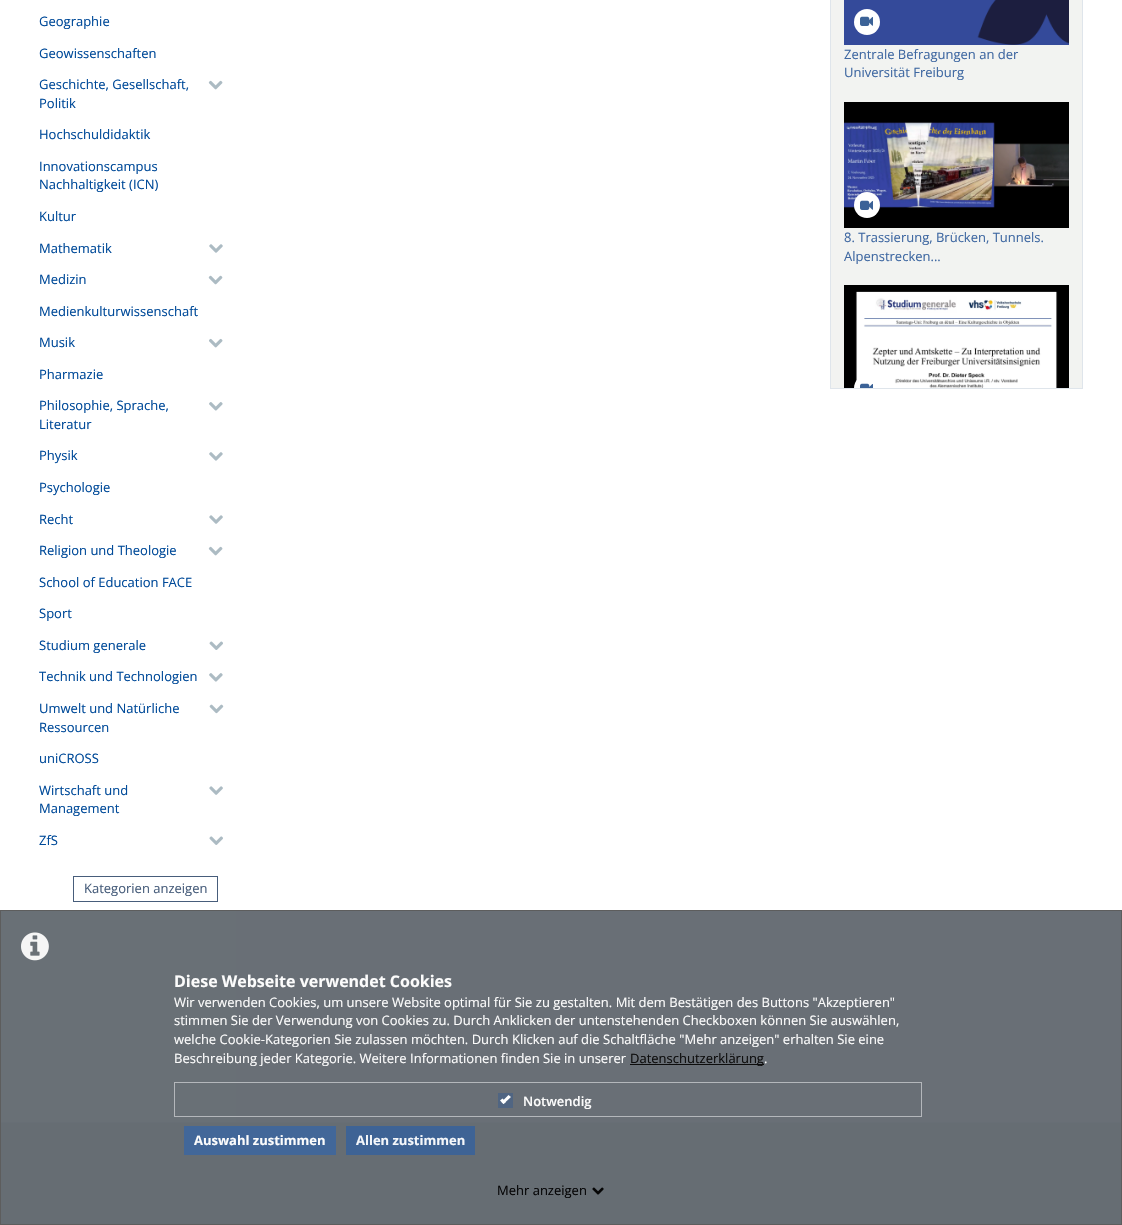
#include "include/core/SkBlurTypes.h"
#include "include/core/SkCanvas.h"
#include "include/core/SkData.h"
#include "include/core/SkFont.h"
#include "include/core/SkFontMgr.h"
#include "include/core/SkImage.h"
#include "include/core/SkMaskFilter.h"
#include "include/core/SkPaint.h"
#include "include/core/SkPathBuilder.h"
#include "include/core/SkTextBlob.h"
#include "include/effects/SkDashPathEffect.h"
#include "include/effects/SkGradientShader.h"
#include "include/utils/SkParsePath.h"

extern sk_sp<SkFontMgr> fontMgr;

void draw(SkCanvas* canvas) {
    SkPaint p;
    p.setAntiAlias(true);
    auto font = [&](const char* family, int weight, float size, bool italic = false) {
        SkFontStyle style(weight, SkFontStyle::kNormal_Width,
            italic ? SkFontStyle::kItalic_Slant : SkFontStyle::kUpright_Slant);
        SkFont result(fontMgr->matchFamilyStyle(family, style), size);
        result.setSubpixel(true);
        return result;
    };
    auto drawPhoto = [&](const char* path, float l, float t, float r, float b) {
        auto image = SkImages::DeferredFromEncodedData(SkData::MakeFromFileName(path));
        canvas->drawImageRect(image, SkRect::MakeLTRB(l, t, r, b), SkSamplingOptions());
    };
    canvas->clear(0xFFFFFFFF);
    p.setColor(0xFF697076);
    canvas->drawRect(SkRect::MakeLTRB(0, 910, 236, 1122), p);
    p.setColor(0xFF656C73);
    canvas->drawRect(SkRect::MakeLTRB(16, 910, 220, 911), p);
    auto font1 = font("Open Sans", 400, 13);
    p.setColor(0xFF004A99);
    {
        const struct { const char* s; float x, y; } items[] = {
            {"Geographie", 39, 26},
            {"Geowissenschaften", 39, 58},
            {"Geschichte, Gesellschaft,", 39, 89},
            {"Politik", 39, 108},
        };
        for (auto [s, x, y] : items) {
            canvas->drawString(s, x, y, font1, p);
        }
    }
    drawPhoto("media/1.png", 208, 80, 223, 90);
    {
        const struct { const char* s; float x, y; } items[] = {
            {"Hochschuldidaktik", 39, 139},
            {"Innovationscampus", 39, 171},
            {"Nachhaltigkeit (ICN)", 39, 189},
            {"Kultur", 39, 221},
            {"Mathematik", 39, 253},
        };
        for (auto [s, x, y] : items) {
            canvas->drawString(s, x, y, font1, p);
        }
    }
    drawPhoto("media/2.png", 209, 244, 223, 253);
    canvas->drawString("Medizin", 39, 284, font1, p);
    drawPhoto("media/3.png", 208, 275, 223, 285);
    canvas->drawString("Medienkulturwissenschaft", 39, 316, font1, p);
    canvas->drawString("Musik", 39, 347, font1, p);
    drawPhoto("media/4.png", 209, 338, 223, 348);
    {
        const struct { const char* s; float x, y; } items[] = {
            {"Pharmazie", 39, 379},
            {"Philosophie, Sprache,", 39, 410},
            {"Literatur", 39, 429},
        };
        for (auto [s, x, y] : items) {
            canvas->drawString(s, x, y, font1, p);
        }
    }
    drawPhoto("media/5.png", 209, 402, 223, 411);
    canvas->drawString("Physik", 39, 460, font1, p);
    drawPhoto("media/6.png", 209, 452, 223, 461);
    canvas->drawString("Psychologie", 39, 492, font1, p);
    canvas->drawString("Recht", 39, 524, font1, p);
    drawPhoto("media/7.png", 209, 515, 223, 524);
    canvas->drawString("Religion und Theologie", 39, 555, font1, p);
    drawPhoto("media/1.png", 208, 546, 223, 556);
    {
        const struct { const char* s; float x, y; } items[] = {
            {"School of Education FACE", 39, 587},
            {"Sport", 39, 618},
            {"Studium generale", 39, 650},
        };
        for (auto [s, x, y] : items) {
            canvas->drawString(s, x, y, font1, p);
        }
    }
    drawPhoto("media/8.png", 209, 641, 223, 650);
    canvas->drawString("Technik und Technologien", 39, 681, font1, p);
    drawPhoto("media/9.png", 209, 673, 223, 682);
    canvas->drawString("Umwelt und Natürliche", 39, 713, font1, p);
    canvas->drawString("Ressourcen", 39, 732, font1, p);
    drawPhoto("media/10.png", 209, 704, 224, 714);
    {
        const struct { const char* s; float x, y; } items[] = {
            {"uniCROSS", 39, 763},
            {"Wirtschaft und", 39, 795},
            {"Management", 39, 813},
        };
        for (auto [s, x, y] : items) {
            canvas->drawString(s, x, y, font1, p);
        }
    }
    drawPhoto("media/11.png", 209, 786, 223, 795);
    canvas->drawString("ZfS", 39, 845, font1, p);
    drawPhoto("media/12.png", 209, 836, 223, 845);
    p.setStyle(SkPaint::kStroke_Style);
    p.setStrokeWidth(1);
    p.setColor(0xFF475D7B);
    canvas->drawRect(SkRect::MakeLTRB(73.5f, 876.5f, 217.5f, 901.5f), p);
    p.setStyle(SkPaint::kFill_Style);
    canvas->drawString("Kategorien anzeigen", 84, 893, font1, p);
    p.setColor(0xFF696F76);
    canvas->drawRect(SkRect::MakeLTRB(236, 910, 1122, 1122), p);
    p.setColor(0xFFF2F3F1);
    canvas->drawRect(SkRect::MakeLTRB(830.5f, -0.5f, 1082.5f, 388.5f), p);
    p.setStyle(SkPaint::kStroke_Style);
    p.setColor(0xFFDFE5EB);
    canvas->drawRect(SkRect::MakeLTRB(830.5f, -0.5f, 1082.5f, 388.5f), p);
    drawPhoto("media/13.png", 844, 0, 1069, 45);
    p.setStyle(SkPaint::kFill_Style);
    p.setColor(0xFFFFFFFF);
    canvas->drawCircle(867, 22, 13, p);
    drawPhoto("media/14.png", 860, 16, 873, 26);
    p.setColor(0xFF3F68A2);
    canvas->drawString("Zentrale Befragungen an der", 844, 59, font1, p);
    canvas->drawString("Universität Freiburg", 844, 77, font1, p);
    drawPhoto("media/15.png", 844, 102, 1069, 228);
    p.setColor(0xFFFFFFFF);
    canvas->drawCircle(867, 205, 13, p);
    drawPhoto("media/14.png", 860, 200, 873, 210);
    p.setColor(0xFF3F68A2);
    canvas->drawString("8. Trassierung, Brücken, Tunnels.", 844, 242, font1, p);
    canvas->drawString("Alpenstrecken...", 844, 261, font1, p);
    drawPhoto("media/16.png", 844, 285, 1069, 388);
    p.setColor(0xFFFFFFFF);
    canvas->drawPath(SkPathBuilder().moveTo(867, 375).cubicTo(874, 375, 880, 381, 880, 388).lineTo(854, 388).cubicTo(854, 381, 860, 375, 867, 375).close().detach(), p);
    drawPhoto("media/17.png", 860, 383, 873, 388);
    p.setColor(0xFF676E75);
    canvas->drawRect(SkRect::MakeLTRB(0, 1122, 1122, 1123), p);
    p.setColor(0xFF666D73);
    canvas->drawRect(SkRect::MakeLTRB(0, 1123, 1122, 1225), p);
    p.setStyle(SkPaint::kStroke_Style);
    p.setColor(0xF25C5C5C);
    canvas->drawRect(SkRect::MakeLTRB(0.5f, 910.5f, 1121.5f, 1224.5f), p);
    drawPhoto("media/18.png", 21, 932, 49, 961);
    auto font2 = font("Open Sans", 700, 16);
    p.setStyle(SkPaint::kFill_Style);
    p.setColor(0xFFFCFCFC);
    canvas->drawString("Diese Webseite verwendet Cookies", 174, 987, font2, p);
    {
        const struct { const char* s; float x, y; } items[] = {
            {"Wir verwenden Cookies, um unsere Website optimal für Sie zu gestalten. Mit dem Bestätigen des Buttons \"Akzeptieren\"", 174, 1007},
            {"stimmen Sie der Verwendung von Cookies zu. Durch Anklicken der untenstehenden Checkboxen können Sie auswählen,", 174, 1025},
            {"welche Cookie-Kategorien Sie zulassen möchten. Durch Klicken auf die Schaltfläche \"Mehr anzeigen\" erhalten Sie eine", 174, 1044},
            {"Beschreibung jeder Kategorie. Weitere Informationen finden Sie in unserer", 174, 1063},
        };
        for (auto [s, x, y] : items) {
            canvas->drawString(s, x, y, font1, p);
        }
    }
    p.setColor(0xFF0D0D0D);
    canvas->drawRect(SkRect::MakeLTRB(630, 1064, 764, 1065), p);
    canvas->drawString("Datenschutzerklärung", 630, 1063, font1, p);
    p.setColor(0xFFFCFCFC);
    canvas->drawString(".", 764, 1063, font1, p);
    p.setStyle(SkPaint::kStroke_Style);
    p.setColor(0xFFB4B7BB);
    canvas->drawRect(SkRect::MakeLTRB(174.5f, 1082.5f, 921.5f, 1116.5f), p);
    p.setStyle(SkPaint::kFill_Style);
    p.setColor(0xFF506582);
    canvas->drawRect(SkRect::MakeLTRB(498, 1093, 513, 1108), p);
    p.setColor(0xFFFFFFFF);
    canvas->drawPath(SkPathBuilder().moveTo(508.5f, 1095).lineTo(511, 1097).lineTo(503.5f, 1104).lineTo(501.5f, 1102).close().detach(), p);
    canvas->drawPath(SkPathBuilder().moveTo(502.5f, 1098.5f).lineTo(506, 1102).lineTo(503.5f, 1104).lineTo(500, 1100.5f).close().detach(), p);
    auto font3 = font("Open Sans", 600, 13);
    p.setColor(0xFFFCFCFC);
    canvas->drawString("Notwendig", 523, 1106, font3, p);
    p.setColor(0xFF426799);
    canvas->drawRect(SkRect::MakeLTRB(184, 1126, 336, 1155), p);
    auto font4 = font("Open Sans", 700, 13);
    p.setColor(0xFFFCFCFC);
    canvas->drawString("Auswahl zustimmen", 194, 1145, font4, p);
    p.setColor(0xF23B6297);
    canvas->drawRect(SkRect::MakeLTRB(346, 1126, 475, 1155), p);
    p.setColor(0xFFF5F7FA);
    canvas->drawString("Allen zustimmen", 356, 1145, font4, p);
    p.setColor(0xFF050506);
    canvas->drawString("Mehr anzeigen", 497, 1195, font1, p);
    drawPhoto("media/19.png", 592, 1187, 604, 1195);
}
